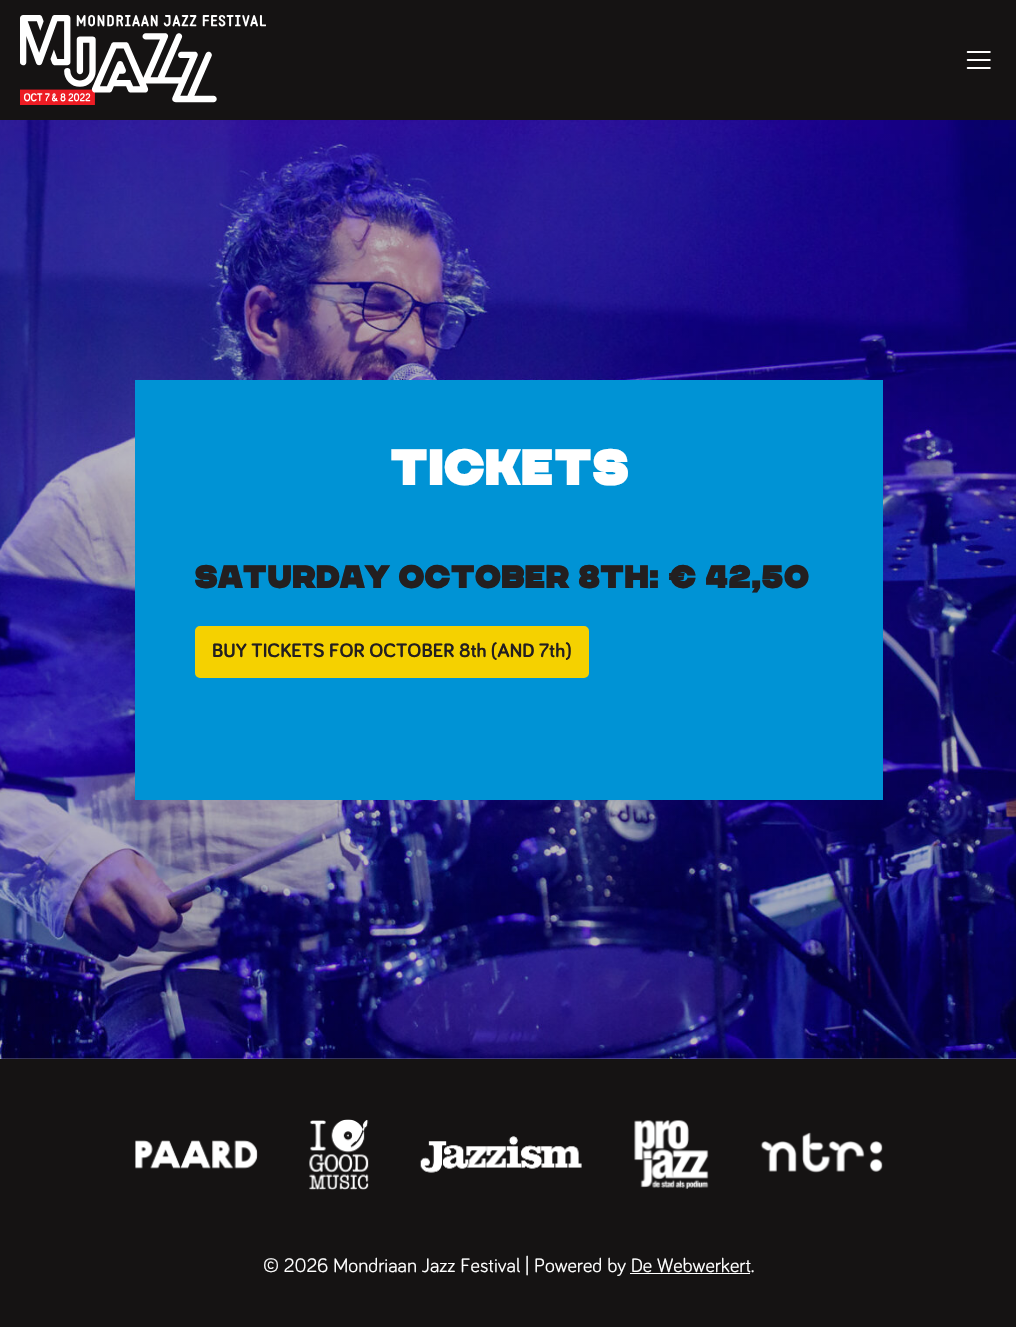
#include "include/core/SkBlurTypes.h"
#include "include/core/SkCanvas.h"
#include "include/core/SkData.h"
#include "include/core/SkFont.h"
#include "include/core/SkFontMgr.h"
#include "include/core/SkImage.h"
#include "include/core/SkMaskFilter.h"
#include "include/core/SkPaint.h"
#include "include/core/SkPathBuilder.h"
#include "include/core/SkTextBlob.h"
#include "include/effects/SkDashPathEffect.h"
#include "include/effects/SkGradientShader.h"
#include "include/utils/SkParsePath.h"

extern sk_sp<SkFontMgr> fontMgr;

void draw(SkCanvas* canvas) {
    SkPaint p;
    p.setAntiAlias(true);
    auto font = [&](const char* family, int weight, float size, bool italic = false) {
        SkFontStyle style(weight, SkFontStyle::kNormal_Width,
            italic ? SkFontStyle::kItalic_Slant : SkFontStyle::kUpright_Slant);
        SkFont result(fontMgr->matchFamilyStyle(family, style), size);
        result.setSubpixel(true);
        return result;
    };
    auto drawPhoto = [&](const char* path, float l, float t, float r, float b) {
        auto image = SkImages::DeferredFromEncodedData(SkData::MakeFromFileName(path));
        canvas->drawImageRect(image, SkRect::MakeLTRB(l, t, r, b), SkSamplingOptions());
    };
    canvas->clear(0xFFFFFFFF);
    p.setColor(0xFF151313);
    canvas->drawRect(SkRect::MakeLTRB(0, 0, 1016, 120), p);
    drawPhoto("media/1.png", 20, 15, 266, 105);
    drawPhoto("media/2.png", 966, 51, 991, 69);
    drawPhoto("media/3.png", 0, 120, 1016, 1059);
    p.setColor(0xFF0093D5);
    canvas->drawRect(SkRect::MakeLTRB(135, 380, 883, 800), p);
    auto font1 = font("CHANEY", 700, 49);
    p.setColor(0xFFFFFFFF);
    canvas->drawString("Tickets", 389, 485, font1, p);
    auto font2 = font("CHANEY", 700, 31.25f);
    p.setColor(0xFF231F20);
    canvas->drawString("Saturday October 8th: € 42,50", 194, 588, font2, p);
    p.setColor(0xFFF5D100);
    canvas->drawRoundRect(SkRect::MakeLTRB(196.5f, 627.5f, 587.5f, 676.5f), 3.5f, 3.5f, p);
    p.setStyle(SkPaint::kStroke_Style);
    p.setStrokeWidth(3);
    canvas->drawRoundRect(SkRect::MakeLTRB(196.5f, 627.5f, 587.5f, 676.5f), 3.5f, 3.5f, p);
    auto font3 = font("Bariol", 700, 20);
    p.setStyle(SkPaint::kFill_Style);
    p.setColor(0xFF231F20);
    canvas->drawString("BUY TICKETS FOR OCTOBER 8th (AND 7th)", 212, 657, font3, p);
    p.setColor(0xFF151313);
    canvas->drawRect(SkRect::MakeLTRB(0, 1059, 1016, 1327), p);
    drawPhoto("media/4.png", 135, 1119, 883, 1190);
    auto font4 = font("Bariol", 400, 20);
    p.setColor(0xFFFFFFFF);
    canvas->drawString("© 2026 Mondriaan Jazz Festival | Powered by De Webwerkert.", 263, 1272, font4, p);
    canvas->drawRect(SkRect::MakeLTRB(630, 1273, 750, 1274), p);
}
